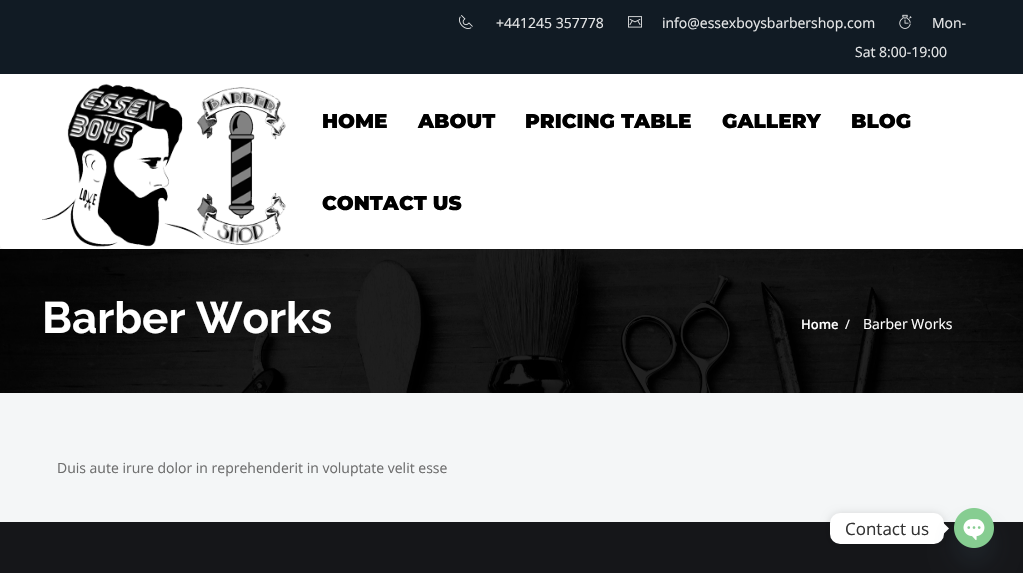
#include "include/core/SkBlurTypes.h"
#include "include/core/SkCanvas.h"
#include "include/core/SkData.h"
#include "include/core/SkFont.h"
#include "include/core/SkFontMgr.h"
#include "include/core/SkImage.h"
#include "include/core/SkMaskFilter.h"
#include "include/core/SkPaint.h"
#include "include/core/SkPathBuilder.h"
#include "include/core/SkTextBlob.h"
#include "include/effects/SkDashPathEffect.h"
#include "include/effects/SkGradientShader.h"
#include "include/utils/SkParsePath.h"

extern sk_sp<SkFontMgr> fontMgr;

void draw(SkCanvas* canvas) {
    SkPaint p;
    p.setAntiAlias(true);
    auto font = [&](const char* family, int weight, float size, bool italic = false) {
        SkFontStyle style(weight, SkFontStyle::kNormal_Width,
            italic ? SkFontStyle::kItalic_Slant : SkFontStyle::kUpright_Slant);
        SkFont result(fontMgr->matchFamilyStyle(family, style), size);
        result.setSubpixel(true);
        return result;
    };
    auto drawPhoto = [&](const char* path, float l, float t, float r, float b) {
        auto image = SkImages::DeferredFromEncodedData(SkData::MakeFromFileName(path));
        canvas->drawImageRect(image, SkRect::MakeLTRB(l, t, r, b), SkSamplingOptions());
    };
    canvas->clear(0xFFFFFFFF);
    p.setColor(0xFFDDDDDD);
    p.setMaskFilter(SkMaskFilter::MakeBlur(kNormal_SkBlurStyle, 1));
    canvas->drawRoundRect(SkRect::MakeLTRB(0, 0, 1023, 249), 4, 4, p);
    p.setMaskFilter(nullptr);
    p.setColor(0xFFFFFFFF);
    canvas->drawRoundRect(SkRect::MakeLTRB(0, 0, 1023, 249), 4, 4, p);
    p.setColor(0xFF111B24);
    canvas->drawRect(SkRect::MakeLTRB(0, 0, 1023, 74), p);
    drawPhoto("media/1.png", 459, 15, 473, 29);
    auto font1 = font("Open Sans", 400, 14);
    p.setColor(0xFFE7E8E9);
    canvas->drawString("+441245 357778", 496, 28, font1, p);
    drawPhoto("media/2.png", 628, 16, 642, 28);
    canvas->drawString("info@essexboysbarbershop.com", 662, 28, font1, p);
    drawPhoto("media/3.png", 899, 14, 912, 29);
    canvas->drawString("Mon-", 932, 28, font1, p);
    canvas->drawString("Sat 8:00-19:00", 855, 57, font1, p);
    drawPhoto("media/4.png", 42, 83, 286, 247);
    auto font2 = font("Montserrat", 900, 20);
    p.setColor(0xFF000000);
    {
        const struct { const char* s; float x, y; } items[] = {
            {"HOME", 322, 128},
            {"ABOUT", 418, 128},
            {"PRICING TABLE", 525, 128},
            {"GALLERY", 722, 128},
            {"BLOG", 851, 128},
            {"CONTACT US", 322, 210},
        };
        for (auto [s, x, y] : items) {
            canvas->drawString(s, x, y, font2, p);
        }
    }
    drawPhoto("media/5.png", 0, 249, 1023, 393);
    auto font3 = font("Raleway", 700, 44);
    p.setColor(0xFFFFFFFF);
    canvas->drawString("Barber Works", 42, 333, font3, p);
    auto font4 = font("Open Sans", 600, 13);
    canvas->drawString("Home", 801, 329, font4, p);
    auto font5 = font("Open Sans", 400, 13);
    canvas->drawString("/", 845, 329, font5, p);
    canvas->drawString("Barber Works", 863, 329, font1, p);
    p.setColor(0xFFF4F6F7);
    canvas->drawRect(SkRect::MakeLTRB(0, 393, 1023, 522), p);
    p.setColor(0xFF6E6E6E);
    canvas->drawString("Duis aute irure dolor in reprehenderit in voluptate velit esse", 57, 473, font1, p);
    p.setColor(0xFF151619);
    canvas->drawRect(SkRect::MakeLTRB(0, 522, 1023, 573), p);
    p.setColor(0x26000000);
    p.setMaskFilter(SkMaskFilter::MakeBlur(kNormal_SkBlurStyle, 4));
    canvas->drawRoundRect(SkRect::MakeLTRB(830, 514, 944, 545), 10, 10, p);
    p.setMaskFilter(nullptr);
    p.setColor(0xFFFFFFFF);
    canvas->drawRoundRect(SkRect::MakeLTRB(830, 513, 944, 544), 10, 10, p);
    auto font6 = font("Open Sans", 400, 17);
    p.setColor(0xFF333333);
    canvas->drawString("Contact us", 845, 535, font6, p);
    p.setColor(0xFFFFFFFF);
    canvas->drawPath(SkPathBuilder().moveTo(944, 533.5f).lineTo(944, 523.5f).lineTo(949, 528.5f).close().detach(), p);
    p.setColor(0x2949687E);
    p.setMaskFilter(SkMaskFilter::MakeBlur(kNormal_SkBlurStyle, 12));
    canvas->drawRoundRect(SkRect::MakeLTRB(954, 524, 994, 564), 20, 20, p);
    p.setMaskFilter(nullptr);
    drawPhoto("media/6.png", 954, 508, 994, 548);
}
